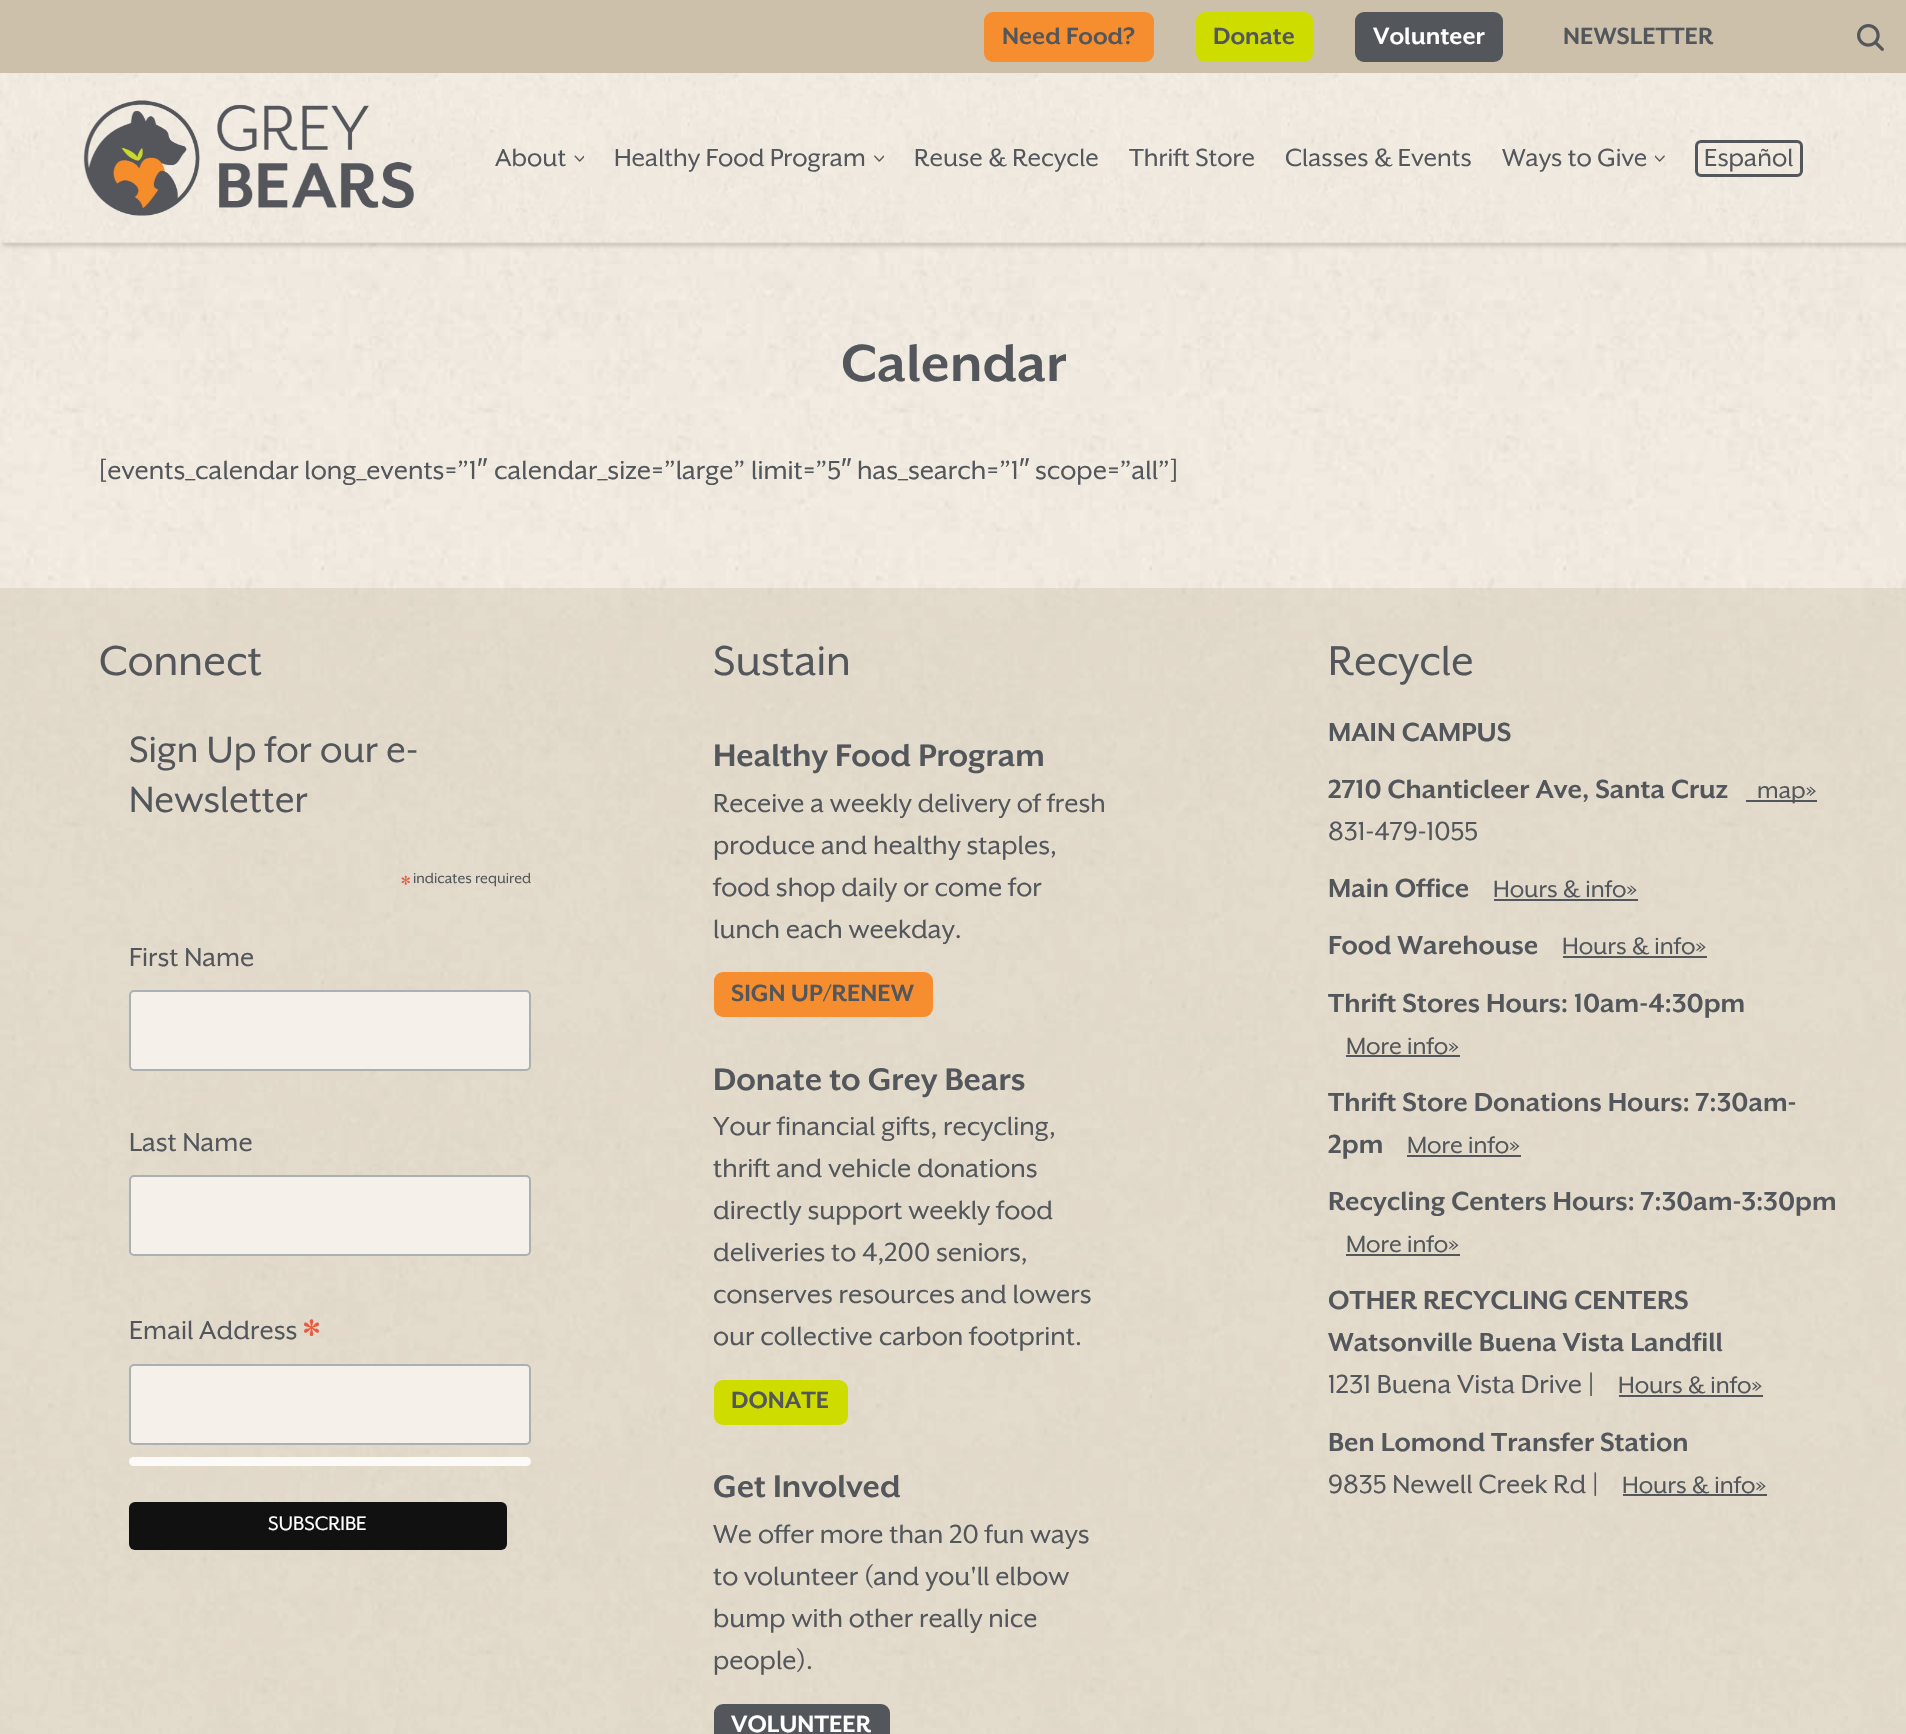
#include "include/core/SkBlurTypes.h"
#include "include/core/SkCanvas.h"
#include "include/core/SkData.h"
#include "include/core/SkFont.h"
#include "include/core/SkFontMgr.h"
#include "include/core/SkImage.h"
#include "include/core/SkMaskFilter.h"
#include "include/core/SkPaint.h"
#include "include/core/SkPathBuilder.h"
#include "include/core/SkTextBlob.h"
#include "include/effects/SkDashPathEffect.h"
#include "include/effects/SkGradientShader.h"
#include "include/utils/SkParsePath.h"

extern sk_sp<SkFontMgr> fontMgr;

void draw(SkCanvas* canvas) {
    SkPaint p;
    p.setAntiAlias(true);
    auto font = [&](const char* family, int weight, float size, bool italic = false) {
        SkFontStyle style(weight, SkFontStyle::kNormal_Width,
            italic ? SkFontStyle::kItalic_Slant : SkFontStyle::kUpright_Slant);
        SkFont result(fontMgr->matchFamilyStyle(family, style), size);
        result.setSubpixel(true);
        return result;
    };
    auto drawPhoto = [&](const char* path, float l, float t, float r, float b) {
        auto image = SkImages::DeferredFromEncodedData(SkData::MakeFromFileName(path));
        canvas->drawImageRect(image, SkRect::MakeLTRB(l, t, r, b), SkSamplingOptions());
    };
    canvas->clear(0xFFFFFFFF);
    drawPhoto("media/1.png", 0, 242, 1906, 1734);
    p.setColor(0x1A000000);
    p.setMaskFilter(SkMaskFilter::MakeBlur(kNormal_SkBlurStyle, 2));
    canvas->drawRect(SkRect::MakeLTRB(0, -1, 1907, 242), p);
    p.setMaskFilter(nullptr);
    p.setColor(0xFFCCC0AB);
    canvas->drawRect(SkRect::MakeLTRB(0, 0, 1906, 73), p);
    p.setColor(0xFFF68D2E);
    canvas->drawRoundRect(SkRect::MakeLTRB(984, 12, 1154, 62), 9, 9, p);
    auto font1 = font("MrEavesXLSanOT", 700, 27);
    p.setColor(0xFF53565A);
    canvas->drawString("Need Food?", 1002, 44, font1, p);
    p.setColor(0xFFCEDC00);
    canvas->drawRoundRect(SkRect::MakeLTRB(1196, 12, 1313, 62), 9, 9, p);
    p.setColor(0xFF53565A);
    canvas->drawString("Donate", 1213, 44, font1, p);
    canvas->drawRoundRect(SkRect::MakeLTRB(1355, 12, 1503, 62), 9, 9, p);
    p.setColor(0xFFFFFFFF);
    canvas->drawString("Volunteer", 1373, 44, font1, p);
    p.setColor(0xFF53565A);
    canvas->drawString("NEWSLETTER", 1563, 44, font1, p);
    drawPhoto("media/2.png", 1857, 24, 1884, 51);
    p.setColor(0x26000000);
    p.setMaskFilter(SkMaskFilter::MakeBlur(kNormal_SkBlurStyle, 2));
    canvas->drawRect(SkRect::MakeLTRB(3, 77, 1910, 246), p);
    p.setMaskFilter(nullptr);
    drawPhoto("media/3.png", 0, 73, 1906, 244);
    drawPhoto("media/4.png", 83, 100, 414, 216);
    auto font2 = font("MrEavesXLSanOT", 400, 28.5f);
    p.setColor(0xFF53565A);
    canvas->drawString("About", 495, 166, font2, p);
    drawPhoto("media/5.png", 574, 155, 584, 162);
    canvas->drawString("Healthy Food Program", 614, 166, font2, p);
    drawPhoto("media/6.png", 874, 155, 884, 162);
    {
        const struct { const char* s; float x, y; } items[] = {
            {"Reuse & Recycle", 914, 166},
            {"Thrift Store", 1129, 166},
            {"Classes & Events", 1285, 166},
            {"Ways to Give", 1502, 166},
        };
        for (auto [s, x, y] : items) {
            canvas->drawString(s, x, y, font2, p);
        }
    }
    drawPhoto("media/7.png", 1655, 155, 1665, 162);
    p.setStyle(SkPaint::kStroke_Style);
    p.setStrokeWidth(3);
    canvas->drawRoundRect(SkRect::MakeLTRB(1696.5f, 141.5f, 1801.5f, 175.5f), 4.5f, 4.5f, p);
    p.setStyle(SkPaint::kFill_Style);
    canvas->drawString("Español", 1704, 166, font2, p);
    auto font3 = font("MrEavesXLSanOT", 700, 60);
    canvas->drawString("Calendar", 841, 381, font3, p);
    auto font4 = font("MrEavesXLSanOT", 400, 30);
    canvas->drawString("[events_calendar long_events=”1", 98, 479, font4, p);
    auto font5 = font("Liberation Sans", 400, 30);
    canvas->drawString("″", 477, 479, font5, p);
    canvas->drawString("calendar_size=”large” limit=”5", 494, 479, font4, p);
    canvas->drawString("″", 841, 479, font5, p);
    canvas->drawString("has_search=”1", 857, 479, font4, p);
    canvas->drawString("″", 1019, 479, font5, p);
    canvas->drawString("scope=”all”]", 1035, 479, font4, p);
    p.setColor(0x36CCC0AB);
    canvas->drawRect(SkRect::MakeLTRB(0, 588, 1906, 1734), p);
    canvas->drawRect(SkRect::MakeLTRB(0, 588, 1906, 1734), p);
    auto font6 = font("MrEavesXLSanOT", 400, 48);
    p.setColor(0xFF53565A);
    canvas->drawString("Connect", 99, 675, font6, p);
    auto font7 = font("MrEavesXLSanOT", 400, 42);
    canvas->drawString("Sign Up for our e-", 129, 762, font7, p);
    canvas->drawString("Newsletter", 129, 812, font7, p);
    auto font8 = font("MrEavesXLSanOT", 400, 25);
    p.setColor(0xFFE85C41);
    canvas->drawString("*", 401, 891, font8, p);
    auto font9 = font("MrEavesXLSanOT", 400, 16.5f);
    p.setColor(0xFF53565A);
    canvas->drawString("indicates required", 413, 883, font9, p);
    canvas->drawString("First Name", 129, 966, font4, p);
    p.setColor(0xFFF5F0E9);
    canvas->drawRoundRect(SkRect::MakeLTRB(130, 991, 530, 1070), 4, 4, p);
    p.setStyle(SkPaint::kStroke_Style);
    p.setStrokeWidth(2);
    p.setColor(0xFFABB0B2);
    canvas->drawRoundRect(SkRect::MakeLTRB(130, 991, 530, 1070), 4, 4, p);
    p.setStyle(SkPaint::kFill_Style);
    p.setColor(0xFF53565A);
    canvas->drawString("Last Name", 129, 1151, font4, p);
    p.setColor(0xFFF5F0E9);
    canvas->drawRoundRect(SkRect::MakeLTRB(130, 1176, 530, 1255), 4, 4, p);
    p.setStyle(SkPaint::kStroke_Style);
    p.setColor(0xFFABB0B2);
    canvas->drawRoundRect(SkRect::MakeLTRB(130, 1176, 530, 1255), 4, 4, p);
    p.setStyle(SkPaint::kFill_Style);
    p.setColor(0xFF53565A);
    canvas->drawString("Email Address", 129, 1339, font4, p);
    auto font10 = font("MrEavesXLSanOT", 400, 45);
    p.setColor(0xFFE85C41);
    canvas->drawString("*", 303, 1347, font10, p);
    p.setColor(0xFFF5F0E9);
    canvas->drawRoundRect(SkRect::MakeLTRB(130, 1365, 530, 1444), 4, 4, p);
    p.setStyle(SkPaint::kStroke_Style);
    p.setColor(0xFFABB0B2);
    canvas->drawRoundRect(SkRect::MakeLTRB(130, 1365, 530, 1444), 4, 4, p);
    p.setStyle(SkPaint::kFill_Style);
    p.setColor(0xD9FFFFFF);
    canvas->drawRoundRect(SkRect::MakeLTRB(129, 1457, 531, 1466), 4.5f, 4.5f, p);
    p.setColor(0xFF111111);
    canvas->drawRoundRect(SkRect::MakeLTRB(129, 1502, 507, 1550), 6, 6, p);
    auto font11 = font("MrEavesXLSanOT", 400, 22.5f);
    p.setColor(0xFFFFFFFF);
    canvas->drawString("SUBSCRIBE", 268, 1530, font11, p);
    p.setColor(0xFF53565A);
    canvas->drawString("Sustain", 713, 675, font6, p);
    auto font12 = font("MrEavesXLSanOT", 700, 36);
    canvas->drawString("Healthy Food Program", 713, 766, font12, p);
    {
        const struct { const char* s; float x, y; } items[] = {
            {"Receive a weekly delivery of fresh", 713, 812},
            {"produce and healthy staples,", 713, 854},
            {"food shop daily or come for", 713, 896},
            {"lunch each weekday.", 713, 938},
        };
        for (auto [s, x, y] : items) {
            canvas->drawString(s, x, y, font4, p);
        }
    }
    p.setColor(0xFFF68D2E);
    canvas->drawRoundRect(SkRect::MakeLTRB(714, 972, 933, 1017), 9, 9, p);
    p.setColor(0xFF53565A);
    canvas->drawString("SIGN UP/RENEW", 731, 1001, font1, p);
    canvas->drawString("Donate to Grey Bears", 713, 1090, font12, p);
    {
        const struct { const char* s; float x, y; } items[] = {
            {"Your financial gifts, recycling,", 713, 1135},
            {"thrift and vehicle donations", 713, 1177},
            {"directly support weekly food", 713, 1219},
            {"deliveries to 4,200 seniors,", 713, 1261},
            {"conserves resources and lowers", 713, 1303},
            {"our collective carbon footprint.", 713, 1345},
        };
        for (auto [s, x, y] : items) {
            canvas->drawString(s, x, y, font4, p);
        }
    }
    p.setColor(0xFFCEDC00);
    canvas->drawRoundRect(SkRect::MakeLTRB(714, 1380, 848, 1425), 9, 9, p);
    p.setColor(0xFF53565A);
    canvas->drawString("DONATE", 731, 1408, font1, p);
    canvas->drawString("Get Involved", 713, 1497, font12, p);
    {
        const struct { const char* s; float x, y; } items[] = {
            {"We offer more than 20 fun ways", 713, 1543},
            {"to volunteer (and you'll elbow", 713, 1585},
            {"bump with other really nice", 713, 1627},
            {"people).", 713, 1669},
        };
        for (auto [s, x, y] : items) {
            canvas->drawString(s, x, y, font4, p);
        }
    }
    canvas->drawRoundRect(SkRect::MakeLTRB(714, 1704, 890, 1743), 9, 9, p);
    p.setColor(0xFFFFFFFF);
    canvas->drawString("VOLUNTEER", 731, 1732, font1, p);
    p.setColor(0xFF53565A);
    canvas->drawString("Recycle", 1328, 675, font6, p);
    auto font13 = font("MrEavesXLSanOT", 700, 30);
    canvas->drawString("MAIN CAMPUS", 1328, 741, font13, p);
    canvas->drawString("2710 Chanticleer Ave, Santa Cruz", 1328, 798, font13, p);
    canvas->drawRect(SkRect::MakeLTRB(1746, 800, 1817, 802), p);
    auto font14 = font("MrEavesXLSanOT", 400, 27);
    canvas->drawString("map»", 1757, 798, font14, p);
    canvas->drawString("831-479-1055", 1328, 840, font4, p);
    canvas->drawString("Main Office", 1328, 897, font13, p);
    canvas->drawString("Hours & info»", 1493, 897, font14, p);
    canvas->drawRect(SkRect::MakeLTRB(1494, 899, 1638, 901), p);
    canvas->drawString("Food Warehouse", 1328, 954, font13, p);
    canvas->drawString("Hours & info»", 1562, 954, font14, p);
    canvas->drawRect(SkRect::MakeLTRB(1563, 956, 1707, 958), p);
    canvas->drawString("Thrift Stores Hours: 10am-4:30pm", 1328, 1012, font13, p);
    canvas->drawString("More info»", 1346, 1054, font14, p);
    canvas->drawRect(SkRect::MakeLTRB(1346, 1055, 1460, 1057), p);
    canvas->drawString("Thrift Store Donations Hours: 7:30am-", 1328, 1111, font13, p);
    canvas->drawString("2pm", 1328, 1153, font13, p);
    canvas->drawString("More info»", 1407, 1153, font14, p);
    canvas->drawRect(SkRect::MakeLTRB(1407, 1155, 1521, 1157), p);
    canvas->drawString("Recycling Centers Hours: 7:30am-3:30pm", 1328, 1210, font13, p);
    canvas->drawString("More info»", 1346, 1252, font14, p);
    canvas->drawRect(SkRect::MakeLTRB(1346, 1254, 1460, 1256), p);
    canvas->drawString("OTHER RECYCLING CENTERS", 1328, 1309, font13, p);
    canvas->drawString("Watsonville Buena Vista Landfill", 1328, 1351, font13, p);
    canvas->drawString("1231 Buena Vista Drive |", 1328, 1393, font4, p);
    canvas->drawString("Hours & info»", 1618, 1393, font14, p);
    canvas->drawRect(SkRect::MakeLTRB(1619, 1395, 1763, 1397), p);
    canvas->drawString("Ben Lomond Transfer Station", 1328, 1451, font13, p);
    canvas->drawString("9835 Newell Creek Rd |", 1328, 1493, font4, p);
    canvas->drawString("Hours & info»", 1622, 1493, font14, p);
    canvas->drawRect(SkRect::MakeLTRB(1623, 1494, 1767, 1496), p);
}
